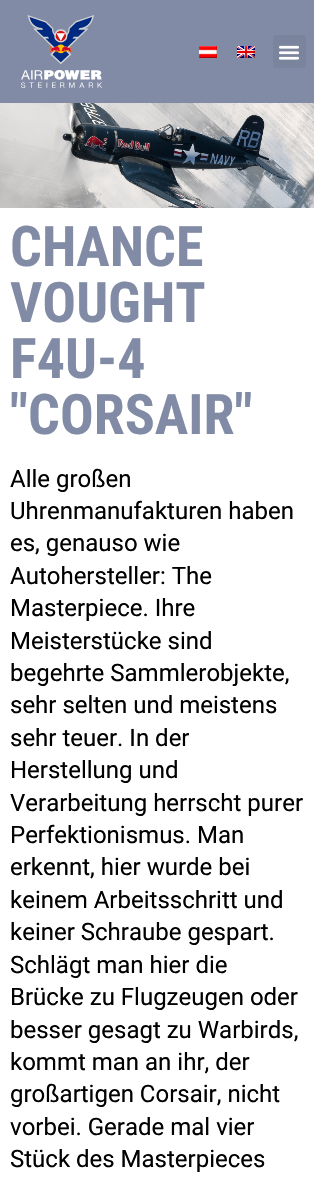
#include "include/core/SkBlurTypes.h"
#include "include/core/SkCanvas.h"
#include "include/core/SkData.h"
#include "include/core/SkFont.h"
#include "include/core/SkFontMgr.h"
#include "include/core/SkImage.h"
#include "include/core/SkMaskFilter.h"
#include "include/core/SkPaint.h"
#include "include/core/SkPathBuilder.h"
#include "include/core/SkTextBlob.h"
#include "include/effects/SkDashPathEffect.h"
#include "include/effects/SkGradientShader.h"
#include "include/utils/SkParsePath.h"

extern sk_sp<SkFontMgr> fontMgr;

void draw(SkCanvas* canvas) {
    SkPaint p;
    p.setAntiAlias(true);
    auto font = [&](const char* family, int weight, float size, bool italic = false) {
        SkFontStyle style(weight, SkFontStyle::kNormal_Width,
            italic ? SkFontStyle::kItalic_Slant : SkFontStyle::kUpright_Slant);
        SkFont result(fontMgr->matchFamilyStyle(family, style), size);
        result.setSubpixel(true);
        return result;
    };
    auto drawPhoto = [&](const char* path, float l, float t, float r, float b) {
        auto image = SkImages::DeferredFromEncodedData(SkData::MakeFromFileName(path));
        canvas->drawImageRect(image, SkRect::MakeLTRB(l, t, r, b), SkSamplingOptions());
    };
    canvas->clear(0xFFFFFFFF);
    p.setColor(0xFF818BA5);
    canvas->drawRect(SkRect::MakeLTRB(0, 0, 314, 103), p);
    drawPhoto("media/1.png", 21, 15, 102, 88);
    drawPhoto("media/2.png", 199, 46, 217, 58);
    drawPhoto("media/3.png", 237, 46, 255, 58);
    p.setColor(0xFF7B849D);
    canvas->drawRoundRect(SkRect::MakeLTRB(273, 35, 306, 68), 3, 3, p);
    drawPhoto("media/4.png", 279, 45, 299, 60);
    drawPhoto("media/5.png", 0, 103, 314, 208);
    auto font1 = font("Roboto Condensed", 700, 56);
    p.setColor(0xFF818BA5);
    {
        const struct { const char* s; float x, y; } items[] = {
            {"CHANCE", 10, 266},
            {"VOUGHT", 10, 322},
            {"F4U-4", 10, 378},
            {"\"CORSAIR\"", 10, 434},
        };
        for (auto [s, x, y] : items) {
            canvas->drawString(s, x, y, font1, p);
        }
    }
    auto font2 = font("Roboto", 400, 24);
    p.setColor(0xFF000000);
    {
        const struct { const char* s; float x, y; } items[] = {
            {"Alle großen", 10, 487},
            {"Uhrenmanufakturen haben", 10, 519},
            {"es, genauso wie", 10, 551},
            {"Autohersteller: The", 10, 584},
            {"Masterpiece. Ihre", 10, 616},
            {"Meisterstücke sind", 10, 649},
            {"begehrte Sammlerobjekte,", 10, 681},
            {"sehr selten und meistens", 10, 713},
            {"sehr teuer. In der", 10, 746},
            {"Herstellung und", 10, 778},
            {"Verarbeitung herrscht purer", 10, 811},
            {"Perfektionismus. Man", 10, 843},
            {"erkennt, hier wurde bei", 10, 875},
            {"keinem Arbeitsschritt und", 10, 908},
            {"keiner Schraube gespart.", 10, 940},
            {"Schlägt man hier die", 10, 973},
            {"Brücke zu Flugzeugen oder", 10, 1005},
            {"besser gesagt zu Warbirds,", 10, 1038},
            {"kommt man an ihr, der", 10, 1070},
            {"großartigen Corsair, nicht", 10, 1102},
            {"vorbei. Gerade mal vier", 10, 1135},
            {"Stück des Masterpieces", 10, 1167},
        };
        for (auto [s, x, y] : items) {
            canvas->drawString(s, x, y, font2, p);
        }
    }
}
